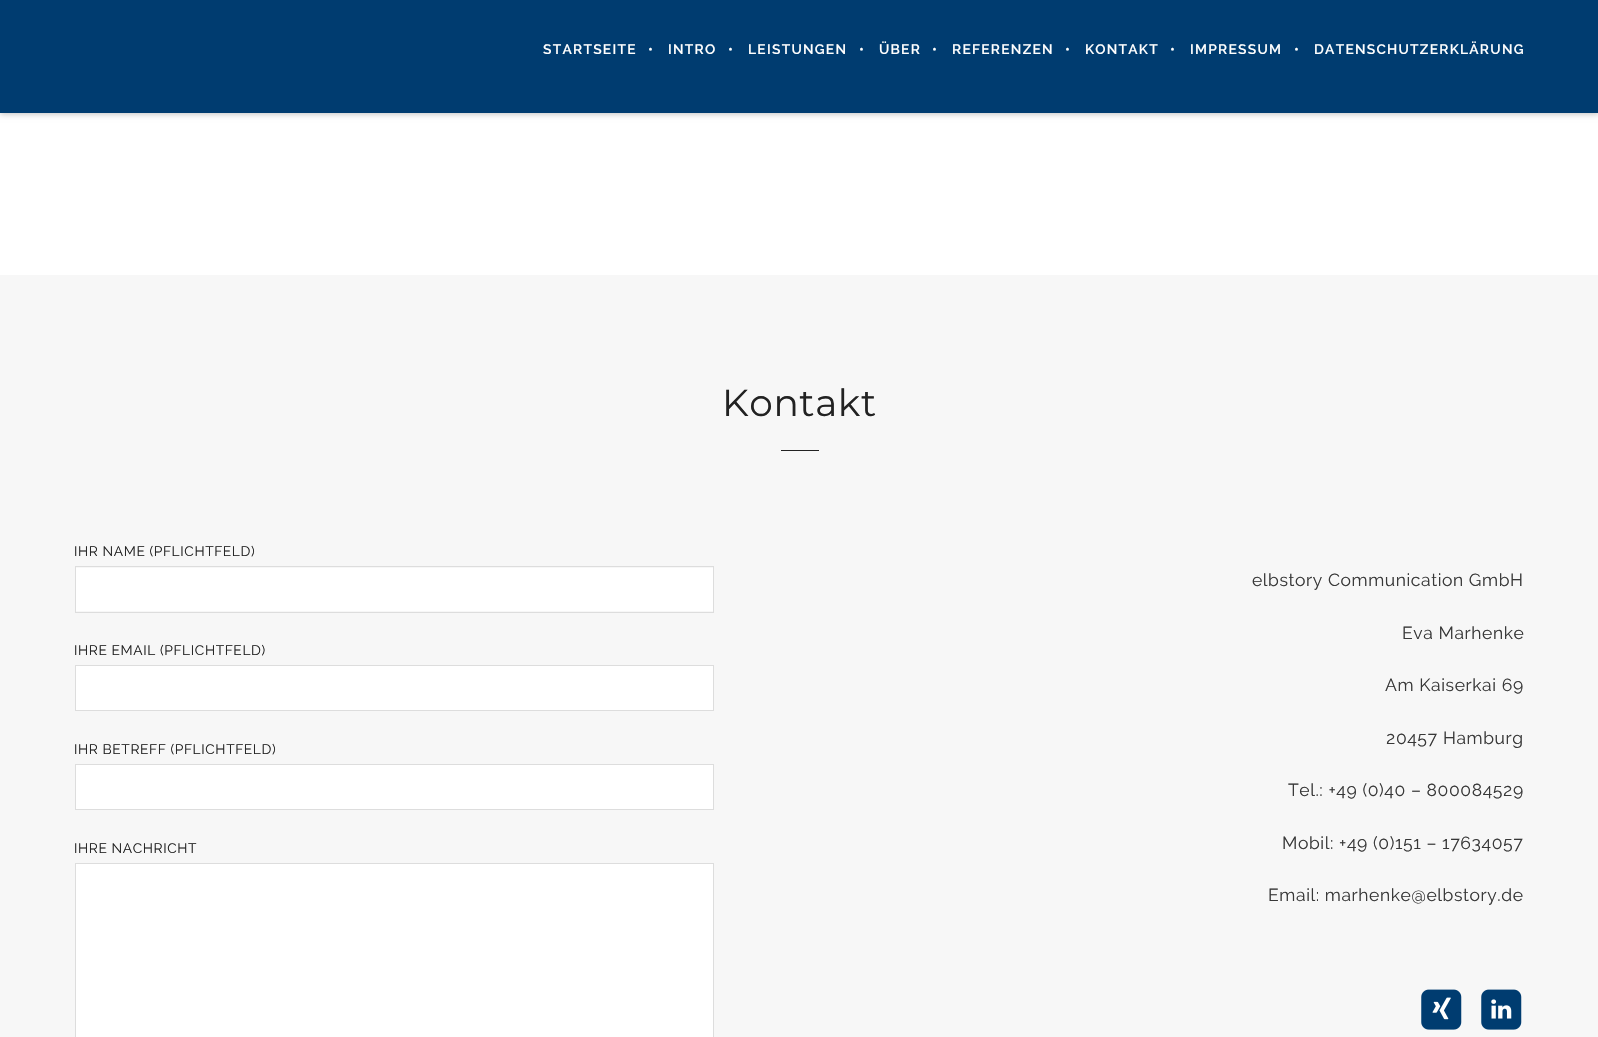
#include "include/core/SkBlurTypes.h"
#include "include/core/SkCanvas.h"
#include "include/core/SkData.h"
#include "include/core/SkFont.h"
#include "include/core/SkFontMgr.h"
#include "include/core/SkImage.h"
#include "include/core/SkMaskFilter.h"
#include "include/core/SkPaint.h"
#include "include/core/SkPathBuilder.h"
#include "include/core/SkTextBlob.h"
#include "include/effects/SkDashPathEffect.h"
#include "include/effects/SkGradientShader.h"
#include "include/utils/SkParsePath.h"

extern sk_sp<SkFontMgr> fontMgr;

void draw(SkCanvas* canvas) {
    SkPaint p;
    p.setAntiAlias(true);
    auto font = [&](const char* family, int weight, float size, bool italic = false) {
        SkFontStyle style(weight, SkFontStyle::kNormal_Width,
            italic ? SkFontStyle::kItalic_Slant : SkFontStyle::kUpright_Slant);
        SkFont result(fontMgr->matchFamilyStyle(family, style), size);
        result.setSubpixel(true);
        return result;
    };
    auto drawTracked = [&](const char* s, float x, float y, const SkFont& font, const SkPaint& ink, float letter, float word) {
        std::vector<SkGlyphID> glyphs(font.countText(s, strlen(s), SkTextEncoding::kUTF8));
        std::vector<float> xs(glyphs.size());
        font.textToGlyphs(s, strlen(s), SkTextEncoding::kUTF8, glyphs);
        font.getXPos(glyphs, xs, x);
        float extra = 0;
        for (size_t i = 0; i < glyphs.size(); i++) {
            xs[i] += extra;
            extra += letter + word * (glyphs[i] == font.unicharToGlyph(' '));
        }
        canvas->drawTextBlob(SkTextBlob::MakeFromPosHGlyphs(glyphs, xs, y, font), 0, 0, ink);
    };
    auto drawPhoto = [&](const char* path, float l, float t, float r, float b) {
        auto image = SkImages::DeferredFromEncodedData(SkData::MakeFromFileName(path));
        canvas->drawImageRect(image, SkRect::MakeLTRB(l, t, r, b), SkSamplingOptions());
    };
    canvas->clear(0xFFFFFFFF);
    p.setColor(0x40000000);
    p.setMaskFilter(SkMaskFilter::MakeBlur(kNormal_SkBlurStyle, 3));
    canvas->drawRect(SkRect::MakeLTRB(0, 1, 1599, 114), p);
    p.setMaskFilter(nullptr);
    p.setColor(0xFF003C70);
    canvas->drawRect(SkRect::MakeLTRB(0, 0, 1598, 113), p);
    auto font1 = font("Raleway", 600, 13.75f);
    p.setColor(0xFFFFFFFF);
    {
        const struct { const char* s; float x, y; } items[] = {
            {"STARTSEITE", 543, 54},
            {"•", 648, 54},
            {"INTRO", 668, 54},
            {"•", 728, 54},
            {"LEISTUNGEN", 748, 54},
            {"•", 859, 54},
            {"ÜBER", 879, 54},
            {"•", 932, 54},
            {"REFERENZEN", 952, 54},
            {"•", 1065, 54},
            {"KONTAKT", 1085, 54},
            {"•", 1170, 54},
            {"IMPRESSUM", 1190, 54},
            {"•", 1294, 54},
            {"DATENSCHUTZERKLÄRUNG", 1314, 54},
        };
        for (auto [s, x, y] : items) {
            drawTracked(s, x, y, font1, p, 1.25f, 0);
        }
    }
    p.setColor(0xFFF7F7F7);
    canvas->drawRect(SkRect::MakeLTRB(0, 275, 1598, 1037), p);
    auto font2 = font("Montserrat", 400, 37.5f);
    p.setColor(0xFF222222);
    drawTracked("Kontakt", 722, 416, font2, p, 0.6f, 0);
    canvas->drawRect(SkRect::MakeLTRB(781, 450, 819, 451), p);
    auto font3 = font("Raleway", 400, 13.75f);
    drawTracked("IHR NAME (PFLICHTFELD)", 74, 556, font3, p, 0.6f, 0);
    p.setColor(0xFFFFFFFF);
    canvas->drawRect(SkRect::MakeLTRB(76, 568, 713, 611), p);
    p.setStyle(SkPaint::kStroke_Style);
    p.setStrokeWidth(1);
    p.setColor(0xFFDDDDDD);
    canvas->drawRect(SkRect::MakeLTRB(75.5f, 566.5f, 713.5f, 612.5f), p);
    p.setStyle(SkPaint::kFill_Style);
    p.setColor(0xFF222222);
    drawTracked("IHRE EMAIL (PFLICHTFELD)", 74, 655, font3, p, 0.6f, 0);
    p.setColor(0xFFFFFFFF);
    canvas->drawRect(SkRect::MakeLTRB(75.5f, 665.5f, 713.5f, 710.5f), p);
    p.setStyle(SkPaint::kStroke_Style);
    p.setColor(0xFFDDDDDD);
    canvas->drawRect(SkRect::MakeLTRB(75.5f, 665.5f, 713.5f, 710.5f), p);
    p.setStyle(SkPaint::kFill_Style);
    p.setColor(0xFF222222);
    drawTracked("IHR BETREFF (PFLICHTFELD)", 74, 754, font3, p, 0.6f, 0);
    p.setColor(0xFFFFFFFF);
    canvas->drawRect(SkRect::MakeLTRB(75.5f, 764.5f, 713.5f, 809.5f), p);
    p.setStyle(SkPaint::kStroke_Style);
    p.setColor(0xFFDDDDDD);
    canvas->drawRect(SkRect::MakeLTRB(75.5f, 764.5f, 713.5f, 809.5f), p);
    p.setStyle(SkPaint::kFill_Style);
    p.setColor(0xFF222222);
    drawTracked("IHRE NACHRICHT", 74, 853, font3, p, 0.6f, 0);
    p.setColor(0xFFFFFFFF);
    canvas->drawRect(SkRect::MakeLTRB(75.5f, 863.5f, 713.5f, 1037.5f), p);
    p.setStyle(SkPaint::kStroke_Style);
    p.setColor(0xFFDDDDDD);
    canvas->drawRect(SkRect::MakeLTRB(75.5f, 863.5f, 713.5f, 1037.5f), p);
    auto font4 = font("Raleway", 400, 17.5f);
    p.setStyle(SkPaint::kFill_Style);
    p.setColor(0xFF383838);
    {
        const struct { const char* s; float x, y; } items[] = {
            {"elbstory Communication GmbH", 1252, 586},
            {"Eva Marhenke", 1402, 639},
            {"Am Kaiserkai 69", 1385, 691},
            {"20457 Hamburg", 1386, 744},
            {"Tel.: +49 (0)40 – 800084529", 1288, 796},
            {"Mobil: +49 (0)151 – 17634057", 1282, 849},
            {"Email: marhenke@elbstory.de", 1268, 901},
        };
        for (auto [s, x, y] : items) {
            drawTracked(s, x, y, font4, p, 0.6f, 0);
        }
    }
    drawPhoto("media/1.png", 1421, 989, 1462, 1030);
    drawPhoto("media/2.png", 1432, 997, 1451, 1020);
    drawPhoto("media/1.png", 1481, 989, 1522, 1030);
    drawPhoto("media/3.png", 1491, 999, 1512, 1019);
}
